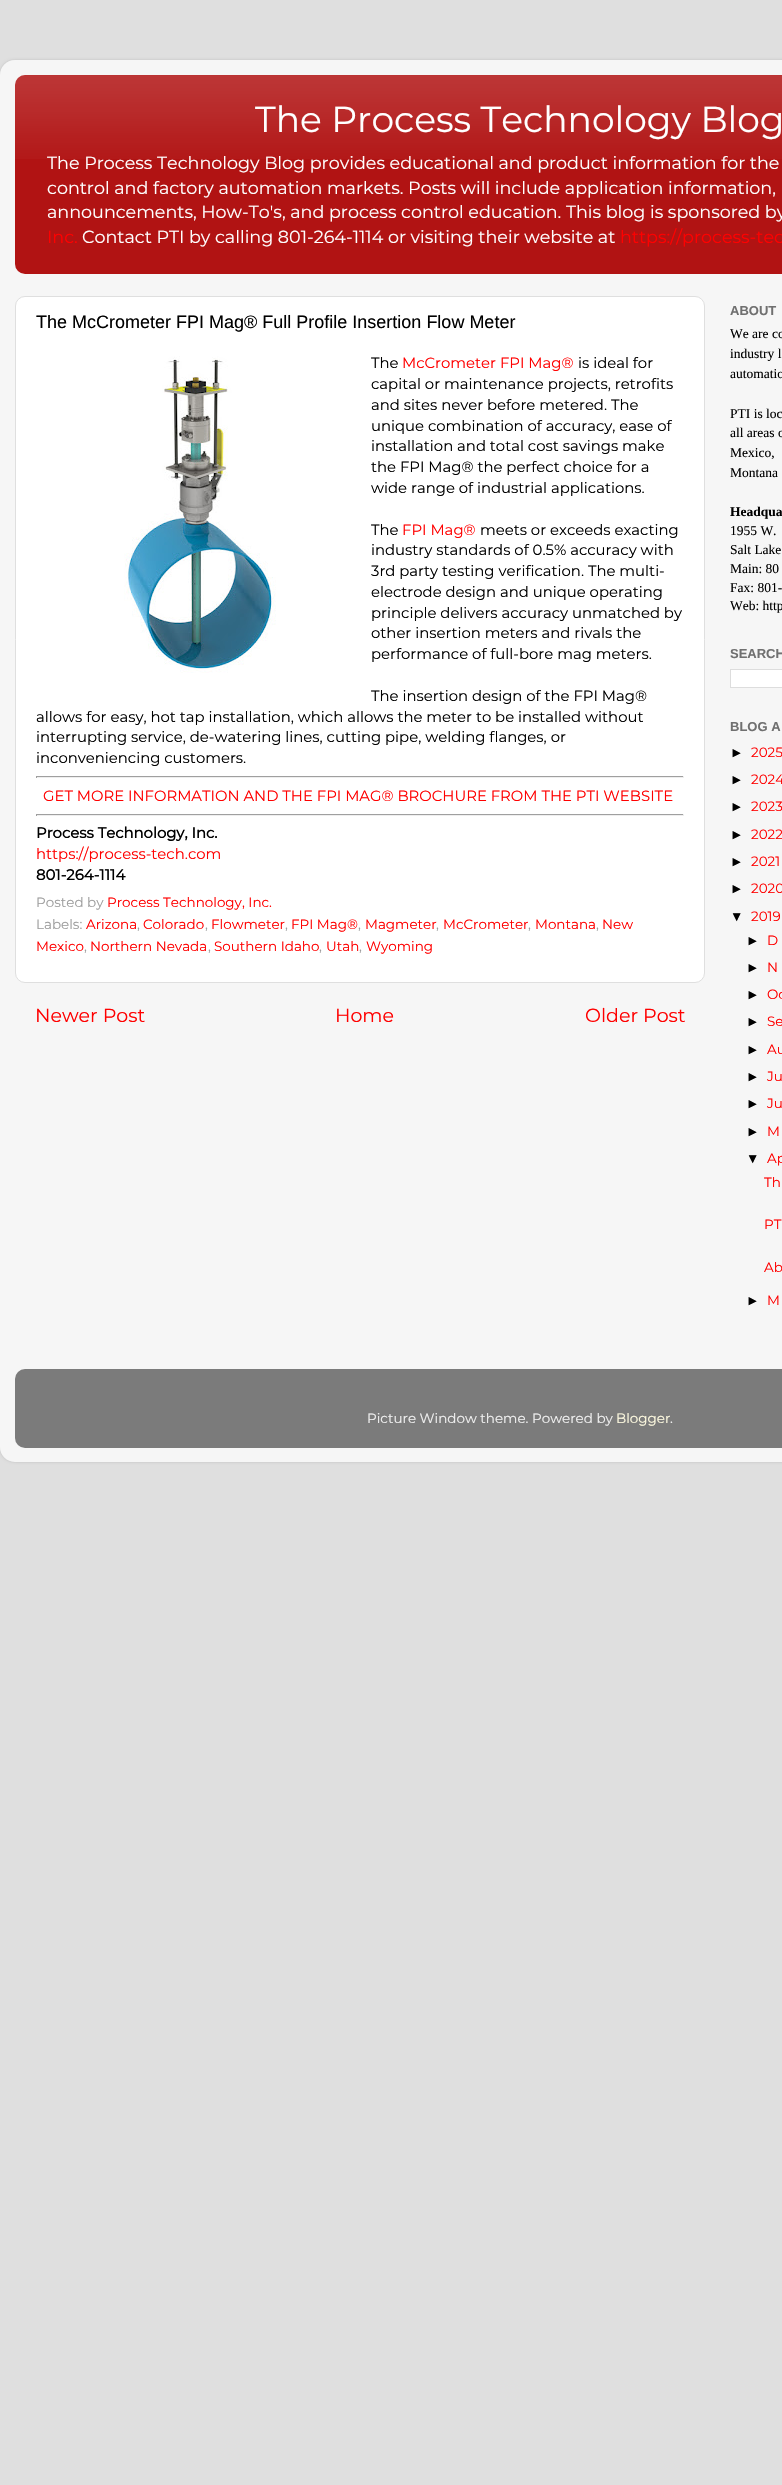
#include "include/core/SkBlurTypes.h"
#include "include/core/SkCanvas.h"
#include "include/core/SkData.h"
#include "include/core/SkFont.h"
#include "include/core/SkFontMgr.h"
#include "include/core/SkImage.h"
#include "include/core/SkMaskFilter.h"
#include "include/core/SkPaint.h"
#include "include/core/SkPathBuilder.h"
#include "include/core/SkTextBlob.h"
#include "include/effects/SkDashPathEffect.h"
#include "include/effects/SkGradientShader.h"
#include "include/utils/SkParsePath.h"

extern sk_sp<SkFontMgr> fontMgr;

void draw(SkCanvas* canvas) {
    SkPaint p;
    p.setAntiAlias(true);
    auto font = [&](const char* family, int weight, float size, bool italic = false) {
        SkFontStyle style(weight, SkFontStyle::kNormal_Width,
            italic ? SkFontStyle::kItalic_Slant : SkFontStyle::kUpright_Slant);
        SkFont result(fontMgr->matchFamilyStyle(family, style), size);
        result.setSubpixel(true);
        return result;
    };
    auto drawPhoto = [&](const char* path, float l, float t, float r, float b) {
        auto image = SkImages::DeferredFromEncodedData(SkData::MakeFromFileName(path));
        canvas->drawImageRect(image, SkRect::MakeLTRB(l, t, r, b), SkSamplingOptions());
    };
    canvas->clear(0xFFDFDFDF);
    canvas->save();
    canvas->clipPath(SkPathBuilder(SkPathFillType::kEvenOdd).moveTo(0, 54).lineTo(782, 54).lineTo(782, 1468).lineTo(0, 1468).close().moveTo(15, 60).lineTo(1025, 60).cubicTo(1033.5f, 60, 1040, 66.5f, 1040, 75).lineTo(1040, 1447).cubicTo(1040, 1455.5f, 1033.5f, 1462, 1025, 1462).lineTo(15, 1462).cubicTo(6.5f, 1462, 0, 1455.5f, 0, 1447).lineTo(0, 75).cubicTo(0, 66.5f, 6.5f, 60, 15, 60).close().detach(), true);
    p.setColor(0x26000000);
    p.setMaskFilter(SkMaskFilter::MakeBlur(kNormal_SkBlurStyle, 1.5f));
    canvas->drawRoundRect(SkRect::MakeLTRB(0, 60, 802, 1462), 15, 15, p);
    p.setMaskFilter(nullptr);
    canvas->restore();
    drawPhoto("media/1.png", 0, 60, 782, 1462);
    p.setColor(0xFFB11313);
    canvas->drawRoundRect(SkRect::MakeLTRB(15, 75, 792, 274), 10, 10, p);
    drawPhoto("media/2.png", 15, 75, 782, 159);
    auto font1 = font("Montserrat", 100, 36);
    p.setColor(0xFFFFFFFF);
    canvas->drawString("The Process Technology Blog", 255, 132, font1, p);
    auto font2 = font("Montserrat", 100, 17.55f);
    {
        const struct { const char* s; float x, y; } items[] = {
            {"The Process Technology Blog provides educational and product information for the", 47, 169},
            {"control and factory automation markets. Posts will include application information,", 47, 194},
            {"announcements, How-To's, and process control education. This blog is sponsored by", 47, 218},
        };
        for (auto [s, x, y] : items) {
            canvas->drawString(s, x, y, font2, p);
        }
    }
    p.setColor(0xFFFF0000);
    canvas->drawString("Inc.", 47, 243, font2, p);
    p.setColor(0xFFFFFFFF);
    canvas->drawString("Contact PTI by calling 801-264-1114 or visiting their website at", 82, 243, font2, p);
    p.setColor(0xFFFF0000);
    canvas->drawString("https://process-tec", 620, 243, font2, p);
    p.setColor(0xFFFFFFFF);
    canvas->drawRoundRect(SkRect::MakeLTRB(15.5f, 296.5f, 704.5f, 982.5f), 9.5f, 9.5f, p);
    p.setStyle(SkPaint::kStroke_Style);
    p.setStrokeWidth(1);
    p.setColor(0xFFDFDFDF);
    canvas->drawRoundRect(SkRect::MakeLTRB(15.5f, 296.5f, 704.5f, 982.5f), 9.5f, 9.5f, p);
    auto font3 = font("Liberation Sans", 400, 18);
    p.setStyle(SkPaint::kFill_Style);
    p.setColor(0xFF000000);
    canvas->drawString("The McCrometer FPI Mag® Full Profile Insertion Flow Meter", 36, 328, font3, p);
    drawPhoto("media/3.png", 124, 356, 276, 673);
    auto font4 = font("Montserrat", 100, 14.85f);
    canvas->drawString("The", 371, 368, font4, p);
    p.setColor(0xFFFF0000);
    canvas->drawString("McCrometer FPI Mag®", 402, 368, font4, p);
    p.setColor(0xFF000000);
    {
        const struct { const char* s; float x, y; } items[] = {
            {"is ideal for", 578, 368},
            {"capital or maintenance projects, retrofits", 371, 389},
            {"and sites never before metered. The", 371, 410},
            {"unique combination of accuracy, ease of", 371, 431},
            {"installation and total cost savings make", 371, 451},
            {"the FPI Mag® the perfect choice for a", 371, 472},
            {"wide range of industrial applications.", 371, 493},
            {"The", 371, 535},
        };
        for (auto [s, x, y] : items) {
            canvas->drawString(s, x, y, font4, p);
        }
    }
    p.setColor(0xFFFF0000);
    canvas->drawString("FPI Mag®", 402, 535, font4, p);
    p.setColor(0xFF000000);
    {
        const struct { const char* s; float x, y; } items[] = {
            {"meets or exceeds exacting", 480, 535},
            {"industry standards of 0.5% accuracy with", 371, 555},
            {"3rd party testing verification. The multi-", 371, 576},
            {"electrode design and unique operating", 371, 597},
            {"principle delivers accuracy unmatched by", 371, 618},
            {"other insertion meters and rivals the", 371, 638},
            {"performance of full-bore mag meters.", 371, 659},
            {"The insertion design of the FPI Mag®", 371, 701},
            {"allows for easy, hot tap installation, which allows the meter to be installed without", 36, 722},
            {"interrupting service, de-watering lines, cutting pipe, welding flanges, or", 36, 742},
            {"inconveniencing customers.", 36, 763},
        };
        for (auto [s, x, y] : items) {
            canvas->drawString(s, x, y, font4, p);
        }
    }
    {
        const struct { float l, t, r, b; SkColor color; } items[] = {
            {36, 776, 684, 777, 0xFF9F9F9F},
            {683, 776, 684, 778, 0xFFEEEEEE},
            {36, 777, 684, 778, 0xFFEEEEEE},
            {36, 776, 37, 778, 0xFF9F9F9F},
        };
        for (auto [l, t, r, b, color] : items) {
            p.setColor(color);
            canvas->drawRect(SkRect::MakeLTRB(l, t, r, b), p);
        }
    }
    p.setColor(0xFFFF0000);
    canvas->drawString("GET MORE INFORMATION AND THE FPI MAG® BROCHURE FROM THE PTI WEBSITE", 43, 801, font4, p);
    {
        const struct { float l, t, r, b; SkColor color; } items[] = {
            {36, 814, 684, 815, 0xFF9F9F9F},
            {683, 814, 684, 816, 0xFFEEEEEE},
            {36, 815, 684, 816, 0xFFEEEEEE},
            {36, 814, 37, 816, 0xFF9F9F9F},
        };
        for (auto [l, t, r, b, color] : items) {
            p.setColor(color);
            canvas->drawRect(SkRect::MakeLTRB(l, t, r, b), p);
        }
    }
    auto font5 = font("Montserrat", 700, 14.85f);
    p.setColor(0xFF000000);
    canvas->drawString("Process Technology, Inc.", 36, 838, font5, p);
    p.setColor(0xFFFF0000);
    canvas->drawString("https://process-tech.com", 36, 859, font4, p);
    p.setColor(0xFF000000);
    canvas->drawString("801-264-1114", 36, 880, font5, p);
    auto font6 = font("Montserrat", 100, 13.5f);
    p.setColor(0xFF9D9D9D);
    canvas->drawString("Posted by", 36, 907, font6, p);
    p.setColor(0xFFFF0000);
    canvas->drawString("Process Technology, Inc.", 107, 907, font6, p);
    p.setColor(0xFF9D9D9D);
    canvas->drawString("Labels:", 36, 929, font6, p);
    p.setColor(0xFFFF0000);
    canvas->drawString("Arizona", 86, 929, font6, p);
    p.setColor(0xFF9D9D9D);
    canvas->drawString(",", 137, 929, font6, p);
    p.setColor(0xFFFF0000);
    canvas->drawString("Colorado", 143, 929, font6, p);
    p.setColor(0xFF9D9D9D);
    canvas->drawString(",", 205, 929, font6, p);
    p.setColor(0xFFFF0000);
    canvas->drawString("Flowmeter", 211, 929, font6, p);
    p.setColor(0xFF9D9D9D);
    canvas->drawString(",", 285, 929, font6, p);
    p.setColor(0xFFFF0000);
    canvas->drawString("FPI Mag®", 291, 929, font6, p);
    p.setColor(0xFF9D9D9D);
    canvas->drawString(",", 358, 929, font6, p);
    p.setColor(0xFFFF0000);
    canvas->drawString("Magmeter", 365, 929, font6, p);
    p.setColor(0xFF9D9D9D);
    canvas->drawString(",", 436, 929, font6, p);
    p.setColor(0xFFFF0000);
    canvas->drawString("McCrometer", 443, 929, font6, p);
    p.setColor(0xFF9D9D9D);
    canvas->drawString(",", 528, 929, font6, p);
    p.setColor(0xFFFF0000);
    canvas->drawString("Montana", 535, 929, font6, p);
    p.setColor(0xFF9D9D9D);
    canvas->drawString(",", 596, 929, font6, p);
    p.setColor(0xFFFF0000);
    canvas->drawString("New", 602, 929, font6, p);
    canvas->drawString("Mexico", 36, 951, font6, p);
    p.setColor(0xFF9D9D9D);
    canvas->drawString(",", 84, 951, font6, p);
    p.setColor(0xFFFF0000);
    canvas->drawString("Northern Nevada", 90, 951, font6, p);
    p.setColor(0xFF9D9D9D);
    canvas->drawString(",", 208, 951, font6, p);
    p.setColor(0xFFFF0000);
    canvas->drawString("Southern Idaho", 214, 951, font6, p);
    p.setColor(0xFF9D9D9D);
    canvas->drawString(",", 319, 951, font6, p);
    p.setColor(0xFFFF0000);
    canvas->drawString("Utah", 326, 951, font6, p);
    p.setColor(0xFF9D9D9D);
    canvas->drawString(",", 359, 951, font6, p);
    p.setColor(0xFFFF0000);
    canvas->drawString("Wyoming", 366, 951, font6, p);
    auto font7 = font("Montserrat", 100, 19);
    {
        const struct { const char* s; float x, y; } items[] = {
            {"Newer Post", 35, 1022},
            {"Home", 335, 1022},
            {"Older Post", 585, 1022},
        };
        for (auto [s, x, y] : items) {
            canvas->drawString(s, x, y, font7, p);
        }
    }
    auto font8 = font("Liberation Sans", 700, 13);
    p.setColor(0xFF707070);
    canvas->drawString("ABOUT", 730, 315, font8, p);
    auto font9 = font("Liberation Serif", 400, 13.5f);
    p.setColor(0xFF000000);
    {
        const struct { const char* s; float x, y; } items[] = {
            {"We are co", 730, 338},
            {"industry l", 730, 358},
            {"automatio", 730, 378},
            {"PTI is loc", 730, 418},
            {"all areas o", 730, 437},
            {"Mexico,", 730, 457},
            {"Montana", 730, 477},
        };
        for (auto [s, x, y] : items) {
            canvas->drawString(s, x, y, font9, p);
        }
    }
    auto font10 = font("Liberation Serif", 700, 13.5f);
    canvas->drawString("Headqua", 730, 516, font10, p);
    {
        const struct { const char* s; float x, y; } items[] = {
            {"1955 W.", 730, 535},
            {"Salt Lake", 730, 554},
            {"Main: 80", 730, 573},
            {"Fax: 801-", 730, 592},
            {"Web: http", 730, 610},
        };
        for (auto [s, x, y] : items) {
            canvas->drawString(s, x, y, font9, p);
        }
    }
    p.setColor(0xFF707070);
    canvas->drawString("SEARCH", 730, 658, font8, p);
    p.setColor(0xFFFFFFFF);
    canvas->drawRect(SkRect::MakeLTRB(730.5f, 669.5f, 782.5f, 687.5f), p);
    p.setStyle(SkPaint::kStroke_Style);
    p.setColor(0xFFDDDDDD);
    canvas->drawRect(SkRect::MakeLTRB(730.5f, 669.5f, 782.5f, 687.5f), p);
    p.setStyle(SkPaint::kFill_Style);
    p.setColor(0xFF707070);
    canvas->drawString("BLOG A", 730, 731, font8, p);
    auto font11 = font("Liberation Sans", 400, 13.5f);
    p.setColor(0xFF000000);
    canvas->drawString("►", 730, 757, font11, p);
    p.setColor(0xFFFF0000);
    canvas->drawString("2025", 751, 757, font6, p);
    p.setColor(0xFF000000);
    canvas->drawString("►", 730, 784, font11, p);
    p.setColor(0xFFFF0000);
    canvas->drawString("2024", 751, 784, font6, p);
    p.setColor(0xFF000000);
    canvas->drawString("►", 730, 811, font11, p);
    p.setColor(0xFFFF0000);
    canvas->drawString("2023", 751, 811, font6, p);
    p.setColor(0xFF000000);
    canvas->drawString("►", 730, 839, font11, p);
    p.setColor(0xFFFF0000);
    canvas->drawString("2022", 751, 839, font6, p);
    p.setColor(0xFF000000);
    canvas->drawString("►", 730, 866, font11, p);
    p.setColor(0xFFFF0000);
    canvas->drawString("2021", 751, 866, font6, p);
    p.setColor(0xFF000000);
    canvas->drawString("►", 730, 893, font11, p);
    p.setColor(0xFFFF0000);
    canvas->drawString("2020", 751, 893, font6, p);
    p.setColor(0xFF000000);
    canvas->drawString("▼", 730, 921, font11, p);
    p.setColor(0xFFFF0000);
    canvas->drawString("2019", 751, 921, font6, p);
    p.setColor(0xFF000000);
    canvas->drawString("►", 746, 945, font11, p);
    p.setColor(0xFFFF0000);
    canvas->drawString("D", 767, 945, font6, p);
    p.setColor(0xFF000000);
    canvas->drawString("►", 746, 972, font11, p);
    p.setColor(0xFFFF0000);
    canvas->drawString("N", 767, 972, font6, p);
    p.setColor(0xFF000000);
    canvas->drawString("►", 746, 999, font11, p);
    p.setColor(0xFFFF0000);
    canvas->drawString("Oc", 767, 999, font6, p);
    p.setColor(0xFF000000);
    canvas->drawString("►", 746, 1026, font11, p);
    p.setColor(0xFFFF0000);
    canvas->drawString("Se", 767, 1026, font6, p);
    p.setColor(0xFF000000);
    canvas->drawString("►", 746, 1054, font11, p);
    p.setColor(0xFFFF0000);
    canvas->drawString("Au", 767, 1054, font6, p);
    p.setColor(0xFF000000);
    canvas->drawString("►", 746, 1081, font11, p);
    p.setColor(0xFFFF0000);
    canvas->drawString("Ju", 767, 1081, font6, p);
    p.setColor(0xFF000000);
    canvas->drawString("►", 746, 1108, font11, p);
    p.setColor(0xFFFF0000);
    canvas->drawString("Ju", 767, 1108, font6, p);
    p.setColor(0xFF000000);
    canvas->drawString("►", 746, 1136, font11, p);
    p.setColor(0xFFFF0000);
    canvas->drawString("M", 767, 1136, font6, p);
    p.setColor(0xFF000000);
    canvas->drawString("▼", 746, 1163, font11, p);
    p.setColor(0xFFFF0000);
    {
        const struct { const char* s; float x, y; } items[] = {
            {"Ap", 767, 1163},
            {"Th", 764, 1187},
            {"PT", 764, 1229},
            {"Ab", 764, 1272},
        };
        for (auto [s, x, y] : items) {
            canvas->drawString(s, x, y, font6, p);
        }
    }
    p.setColor(0xFF000000);
    canvas->drawString("►", 746, 1305, font11, p);
    p.setColor(0xFFFF0000);
    canvas->drawString("M", 767, 1305, font6, p);
    drawPhoto("media/4.png", 15, 1369, 782, 1448);
    p.setColor(0xFFF0F0F0);
    canvas->drawString("Picture Window theme. Powered by", 367, 1423, font6, p);
    p.setColor(0xFFFFFBE1);
    canvas->drawString("Blogger", 616, 1423, font6, p);
    p.setColor(0xFFF0F0F0);
    canvas->drawString(".", 670, 1423, font6, p);
}
